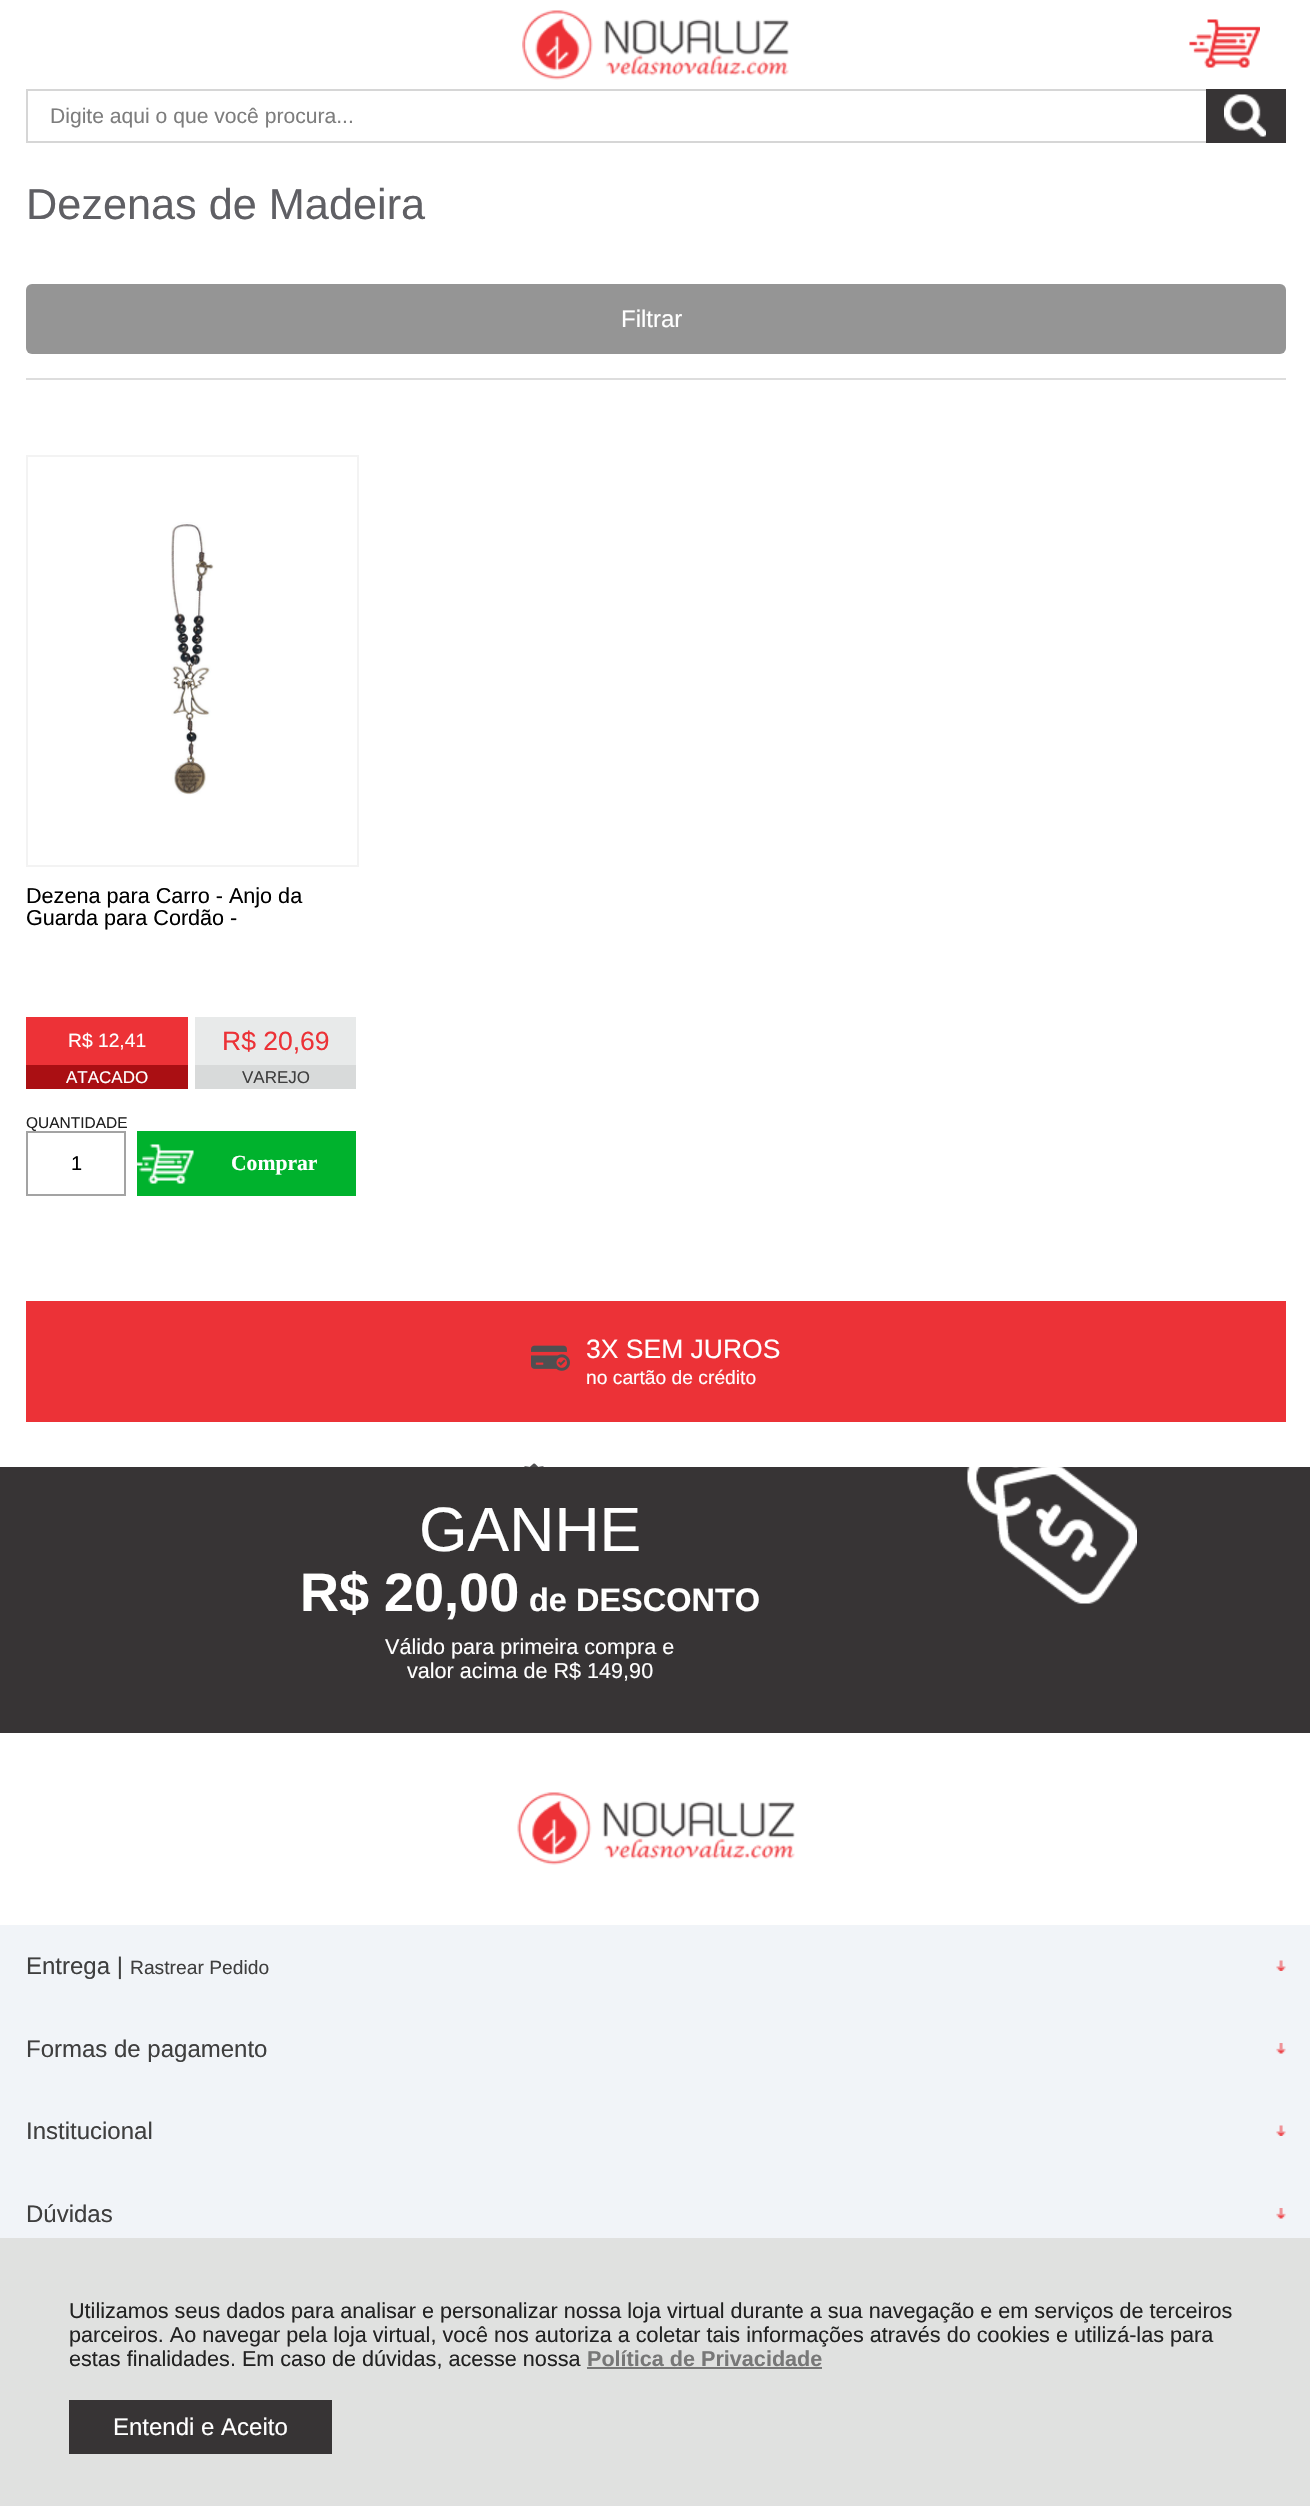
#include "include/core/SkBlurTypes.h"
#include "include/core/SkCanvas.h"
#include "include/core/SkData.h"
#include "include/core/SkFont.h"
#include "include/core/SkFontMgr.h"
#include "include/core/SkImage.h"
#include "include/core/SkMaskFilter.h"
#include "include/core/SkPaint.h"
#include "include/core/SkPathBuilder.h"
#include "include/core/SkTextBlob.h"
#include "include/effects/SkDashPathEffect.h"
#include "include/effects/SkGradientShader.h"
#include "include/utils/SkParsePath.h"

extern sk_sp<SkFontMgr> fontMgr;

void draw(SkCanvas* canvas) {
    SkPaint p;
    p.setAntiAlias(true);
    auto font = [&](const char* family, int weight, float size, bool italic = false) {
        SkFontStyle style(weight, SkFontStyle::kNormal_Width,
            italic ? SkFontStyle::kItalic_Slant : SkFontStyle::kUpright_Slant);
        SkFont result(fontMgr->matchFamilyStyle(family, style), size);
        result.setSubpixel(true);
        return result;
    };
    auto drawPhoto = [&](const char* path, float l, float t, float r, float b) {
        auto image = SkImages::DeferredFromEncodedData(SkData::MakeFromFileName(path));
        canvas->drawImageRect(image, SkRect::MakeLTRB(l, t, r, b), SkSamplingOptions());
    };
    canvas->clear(0xFFFFFFFF);
    drawPhoto("media/1.png", 522, 10, 789, 80);
    drawPhoto("media/2.png", 1189, 19, 1260, 68);
    p.setStyle(SkPaint::kStroke_Style);
    p.setStrokeWidth(2);
    p.setColor(0xFFD6D6D6);
    canvas->drawRect(SkRect::MakeLTRB(27, 90, 1285, 142), p);
    auto font1 = font("Liberation Sans", 400, 21.1f);
    p.setStyle(SkPaint::kFill_Style);
    p.setColor(0xFF7D7D7D);
    canvas->drawString("Digite aqui o que você procura...", 50, 123, font1, p);
    p.setColor(0xFF373435);
    canvas->drawRect(SkRect::MakeLTRB(1206, 89, 1286, 143), p);
    drawPhoto("media/3.png", 1224, 94, 1266, 137);
    auto font2 = font("Liberation Sans", 400, 43.25f);
    p.setColor(0xFF5F5F64);
    canvas->drawString("Dezenas de Madeira", 26, 219, font2, p);
    p.setColor(0xFFDDDDDD);
    canvas->drawRect(SkRect::MakeLTRB(26, 378, 1286, 380), p);
    p.setColor(0xFF959595);
    canvas->drawRoundRect(SkRect::MakeLTRB(26, 284, 1286, 354), 6, 6, p);
    auto font3 = font("Liberation Sans", 400, 24);
    p.setColor(0xFFFFFFFF);
    canvas->drawString("Filtrar", 621, 327, font3, p);
    p.setStyle(SkPaint::kStroke_Style);
    p.setColor(0xFFF3F3F3);
    canvas->drawRect(SkRect::MakeLTRB(27, 456, 358, 866), p);
    drawPhoto("media/4.png", 171, 522, 214, 795);
    auto font4 = font("Liberation Sans", 400, 21.6f);
    p.setStyle(SkPaint::kFill_Style);
    p.setColor(0xFF000000);
    canvas->drawString("Dezena para Carro - Anjo da", 26, 903, font4, p);
    canvas->drawString("Guarda para Cordão -", 26, 925, font4, p);
    p.setColor(0xFFED3237);
    canvas->drawRect(SkRect::MakeLTRB(26, 1017, 188, 1065), p);
    auto font5 = font("Liberation Sans", 400, 19.25f);
    p.setColor(0xFFFFFFFF);
    canvas->drawString("R$ 12,41", 68, 1047, font5, p);
    p.setColor(0xFFAA0F13);
    canvas->drawRect(SkRect::MakeLTRB(26, 1065, 188, 1089), p);
    auto font6 = font("Liberation Sans", 400, 17);
    p.setColor(0xFFFFFFFF);
    canvas->drawString("ATACADO", 66, 1083, font6, p);
    p.setColor(0xFFE8EAEA);
    canvas->drawRect(SkRect::MakeLTRB(195, 1017, 356, 1065), p);
    auto font7 = font("Liberation Sans", 400, 26.5f);
    p.setColor(0xFFEC3237);
    canvas->drawString("R$ 20,69", 222, 1050, font7, p);
    p.setColor(0xFFD8DADA);
    canvas->drawRect(SkRect::MakeLTRB(195, 1065, 356, 1089), p);
    p.setColor(0xFF3F3F3F);
    canvas->drawString("VAREJO", 242, 1083, font6, p);
    auto font8 = font("Liberation Sans", 400, 15.5f);
    p.setColor(0xFF222222);
    canvas->drawString("QUANTIDADE", 26, 1128, font8, p);
    p.setStyle(SkPaint::kStroke_Style);
    p.setColor(0xFFA3A3A3);
    canvas->drawRect(SkRect::MakeLTRB(27, 1132, 125, 1195), p);
    auto font9 = font("Liberation Sans", 400, 20);
    p.setStyle(SkPaint::kFill_Style);
    p.setColor(0xFF000000);
    canvas->drawString("1", 71, 1170, font9, p);
    p.setColor(0xFF00B22D);
    canvas->drawRect(SkRect::MakeLTRB(137, 1131, 356, 1196), p);
    drawPhoto("media/5.png", 137, 1144, 194, 1184);
    auto font10 = font("Liberation Serif", 700, 21.6f);
    p.setColor(0xFFFFFFFF);
    canvas->drawString("Comprar", 231, 1170, font10, p);
    p.setColor(0xFFEC3237);
    canvas->drawRect(SkRect::MakeLTRB(26, 1301, 1286, 1422), p);
    drawPhoto("media/6.png", 531, 1345, 570, 1371);
    p.setColor(0xFFFFFFFF);
    canvas->drawString("3X SEM JUROS", 586, 1358, font7, p);
    canvas->drawString("no cartão de crédito", 586, 1384, font5, p);
    drawPhoto("media/7.png", 524, 1463, 544, 1467);
    p.setColor(0xFF373435);
    canvas->drawRect(SkRect::MakeLTRB(0, 1467, 1310, 1733), p);
    auto font11 = font("Liberation Sans", 400, 62.5f);
    p.setColor(0xFFFFFFFF);
    canvas->drawString("GANHE", 419, 1551, font11, p);
    auto font12 = font("Liberation Sans", 700, 54);
    canvas->drawString("R$ 20,00", 300, 1611, font12, p);
    auto font13 = font("Liberation Sans", 700, 32.5f);
    canvas->drawString("de DESCONTO", 529, 1611, font13, p);
    canvas->drawString("Válido para primeira compra e", 385, 1654, font4, p);
    canvas->drawString("valor acima de R$ 149,90", 407, 1678, font4, p);
    drawPhoto("media/8.png", 967, 1467, 1137, 1604);
    drawPhoto("media/9.png", 517, 1792, 795, 1865);
    p.setColor(0xFFF1F4F8);
    canvas->drawRect(SkRect::MakeLTRB(0, 1925, 1310, 2238), p);
    p.setColor(0xFF3F3F3F);
    canvas->drawString("Entrega |", 26, 1974, font3, p);
    canvas->drawString("Rastrear Pedido", 130, 1974, font5, p);
    drawPhoto("media/10.png", 1276, 1960, 1286, 1971);
    canvas->drawString("Formas de pagamento", 26, 2057, font3, p);
    drawPhoto("media/11.png", 1276, 2043, 1286, 2054);
    canvas->drawString("Institucional", 26, 2139, font3, p);
    drawPhoto("media/10.png", 1276, 2125, 1286, 2136);
    canvas->drawString("Dúvidas", 26, 2222, font3, p);
    drawPhoto("media/11.png", 1276, 2208, 1286, 2219);
    p.setColor(0xFFE0E1E0);
    canvas->drawRect(SkRect::MakeLTRB(0, 2238, 1310, 2506), p);
    p.setColor(0xFF222222);
    {
        const struct { const char* s; float x, y; } items[] = {
            {"Utilizamos seus dados para analisar e personalizar nossa loja virtual durante a sua navegação e em serviços de terceiros", 69, 2318},
            {"parceiros. Ao navegar pela loja virtual, você nos autoriza a coletar tais informações através do cookies e utilizá-las para", 69, 2342},
            {"estas finalidades. Em caso de dúvidas, acesse nossa", 69, 2366},
        };
        for (auto [s, x, y] : items) {
            canvas->drawString(s, x, y, font4, p);
        }
    }
    auto font14 = font("Liberation Sans", 700, 21.6f);
    p.setColor(0xFF777777);
    canvas->drawString("Política de Privacidade", 587, 2366, font14, p);
    canvas->drawRect(SkRect::MakeLTRB(587, 2367, 822, 2369), p);
    p.setColor(0xFF373435);
    canvas->drawRect(SkRect::MakeLTRB(69, 2400, 332, 2454), p);
    p.setColor(0xFFFFFFFF);
    canvas->drawString("Entendi e Aceito", 113, 2435, font3, p);
}
